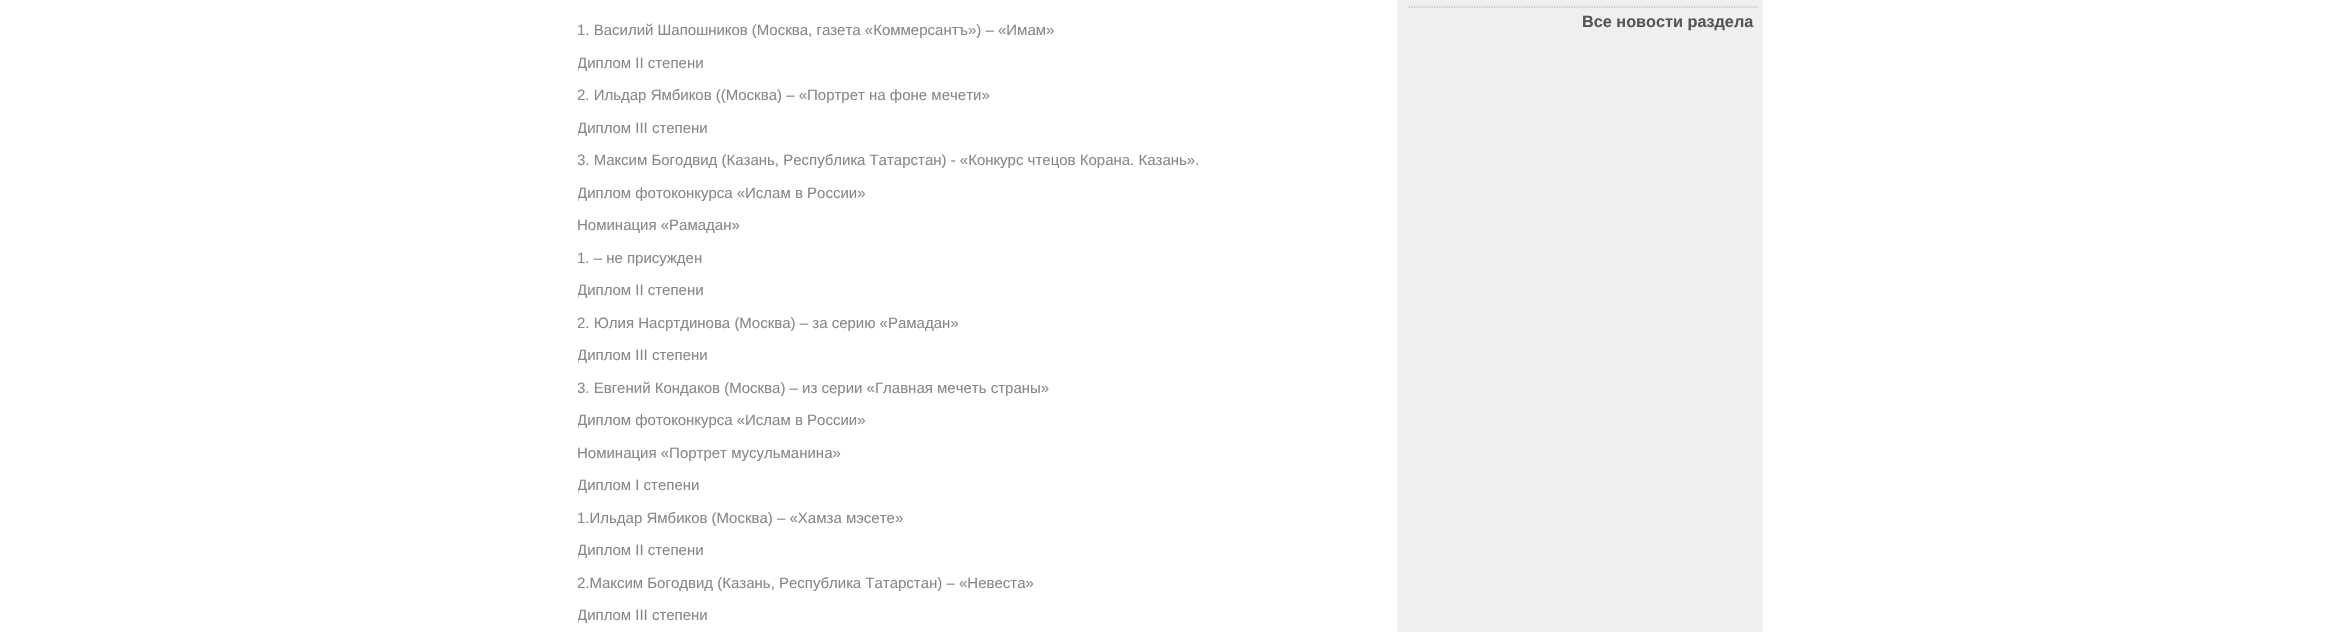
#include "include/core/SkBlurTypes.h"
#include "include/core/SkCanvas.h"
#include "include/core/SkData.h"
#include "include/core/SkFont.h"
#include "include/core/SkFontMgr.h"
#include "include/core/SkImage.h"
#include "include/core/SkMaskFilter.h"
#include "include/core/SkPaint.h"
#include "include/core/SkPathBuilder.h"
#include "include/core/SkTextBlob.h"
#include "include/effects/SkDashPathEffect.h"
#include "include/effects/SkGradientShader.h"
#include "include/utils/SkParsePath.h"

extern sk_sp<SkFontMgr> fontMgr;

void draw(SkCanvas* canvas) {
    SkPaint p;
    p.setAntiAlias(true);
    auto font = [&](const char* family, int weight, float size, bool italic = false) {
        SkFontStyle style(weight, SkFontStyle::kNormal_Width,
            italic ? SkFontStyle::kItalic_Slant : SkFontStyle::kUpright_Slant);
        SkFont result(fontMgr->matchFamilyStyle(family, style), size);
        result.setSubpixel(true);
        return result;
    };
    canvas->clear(0xFFFFFFFF);
    p.setColor(0xFFEFEFEF);
    canvas->drawRect(SkRect::MakeLTRB(1397, 0, 1763, 632), p);
    auto font1 = font("Liberation Sans", 400, 15);
    p.setColor(0xFF888888);
    canvas->drawString("1. Василий Шапошников (Москва, газета «Коммерсантъ») – «Имам»", 577, 35, font1, p);
    canvas->save();
    canvas->clipRect(SkRect::MakeLTRB(578, 0, 1765, 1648));
    {
        const struct { const char* s; float x, y; } items[] = {
            {"Диплом II степени", 577, 68},
            {"2. Ильдар Ямбиков ((Москва) – «Портрет на фоне мечети»", 577, 100},
            {"Диплом III степени", 577, 133},
            {"3. Максим Богодвид (Казань, Республика Татарстан) - «Конкурс чтецов Корана. Казань».", 577, 165},
            {"Диплом фотоконкурса «Ислам в России»", 577, 198},
        };
        for (auto [s, x, y] : items) {
            canvas->drawString(s, x, y, font1, p);
        }
    }
    canvas->restore();
    canvas->drawString("Номинация «Рамадан»", 577, 230, font1, p);
    canvas->drawString("1. – не присужден", 577, 263, font1, p);
    canvas->save();
    canvas->clipRect(SkRect::MakeLTRB(578, 0, 1765, 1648));
    {
        const struct { const char* s; float x, y; } items[] = {
            {"Диплом II степени", 577, 295},
            {"2. Юлия Насртдинова (Москва) – за серию «Рамадан»", 577, 328},
            {"Диплом III степени", 577, 360},
            {"3. Евгений Кондаков (Москва) – из серии «Главная мечеть страны»", 577, 393},
            {"Диплом фотоконкурса «Ислам в России»", 577, 425},
        };
        for (auto [s, x, y] : items) {
            canvas->drawString(s, x, y, font1, p);
        }
    }
    canvas->restore();
    canvas->drawString("Номинация «Портрет мусульманина»", 577, 458, font1, p);
    canvas->save();
    canvas->clipRect(SkRect::MakeLTRB(578, 0, 1765, 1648));
    canvas->drawString("Диплом I степени", 577, 490, font1, p);
    canvas->restore();
    canvas->drawString("1.Ильдар Ямбиков (Москва) – «Хамза мэсете»", 577, 523, font1, p);
    canvas->save();
    canvas->clipRect(SkRect::MakeLTRB(578, 0, 1765, 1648));
    {
        const struct { const char* s; float x, y; } items[] = {
            {"Диплом II степени", 577, 555},
            {"2.Максим Богодвид (Казань, Республика Татарстан) – «Невеста»", 577, 588},
            {"Диплом III степени", 577, 620},
        };
        for (auto [s, x, y] : items) {
            canvas->drawString(s, x, y, font1, p);
        }
    }
    canvas->restore();
    p.setStyle(SkPaint::kStroke_Style);
    p.setStrokeWidth(1.2f);
    p.setColor(0xFFAAAAAA);
    p.setPathEffect(SkDashPathEffect::Make({{1.25f, 1.25f}}, 0));
    canvas->drawPath(SkPathBuilder().moveTo(1409, 7).lineTo(1759, 7).detach(), p);
    p.setPathEffect(nullptr);
    auto font2 = font("Liberation Sans", 700, 16.25f);
    p.setStyle(SkPaint::kFill_Style);
    p.setColor(0xFF555555);
    canvas->drawString("Все новости раздела", 1582, 27, font2, p);
}
